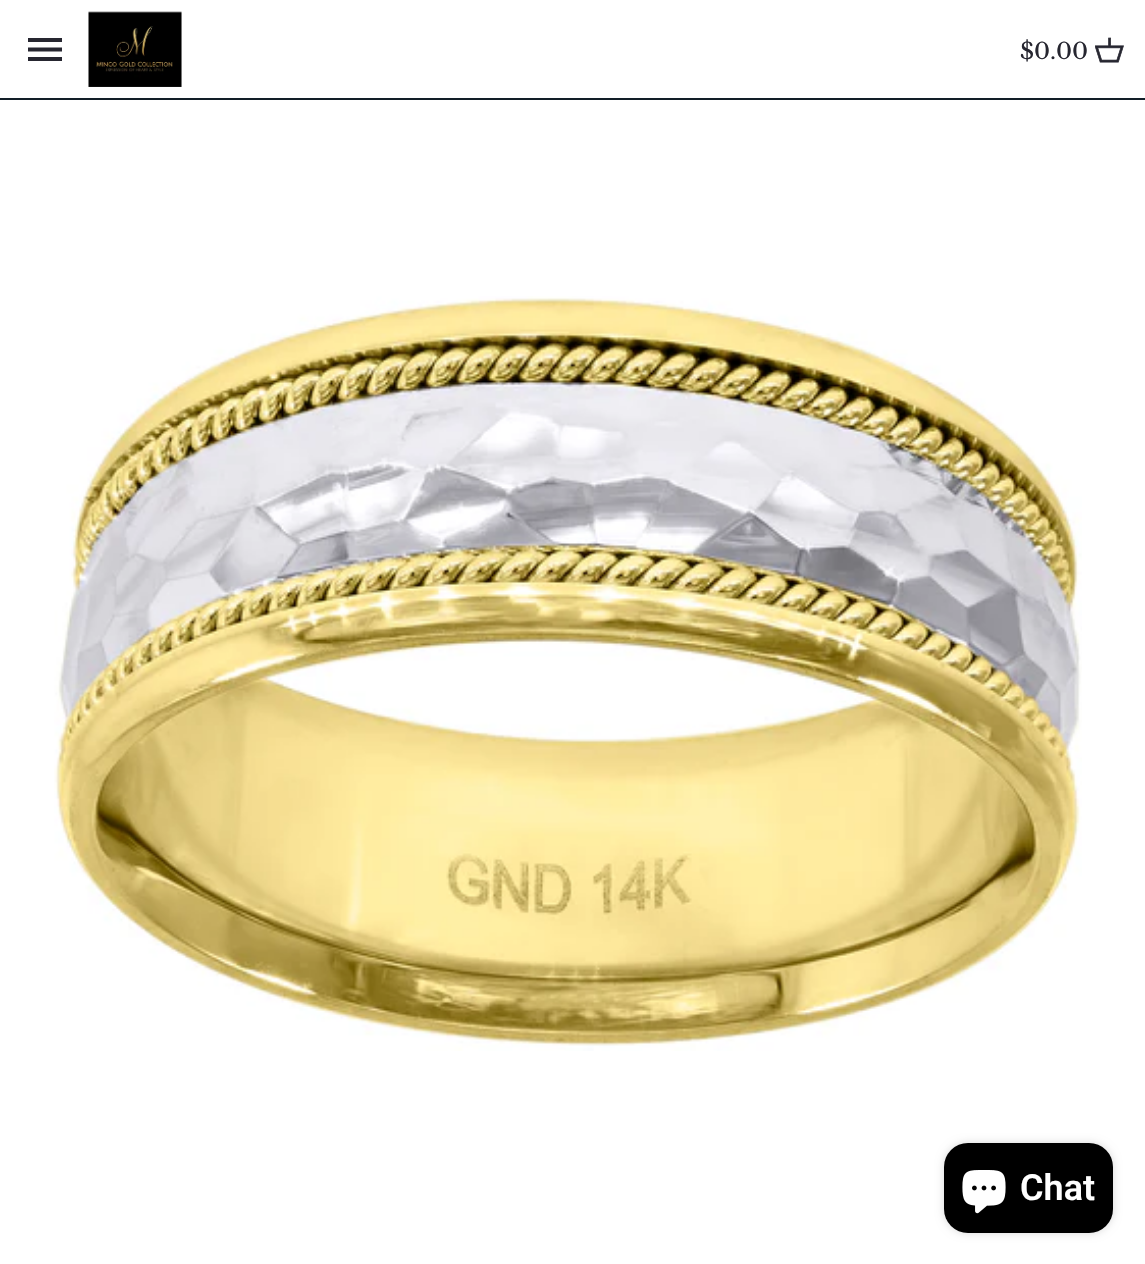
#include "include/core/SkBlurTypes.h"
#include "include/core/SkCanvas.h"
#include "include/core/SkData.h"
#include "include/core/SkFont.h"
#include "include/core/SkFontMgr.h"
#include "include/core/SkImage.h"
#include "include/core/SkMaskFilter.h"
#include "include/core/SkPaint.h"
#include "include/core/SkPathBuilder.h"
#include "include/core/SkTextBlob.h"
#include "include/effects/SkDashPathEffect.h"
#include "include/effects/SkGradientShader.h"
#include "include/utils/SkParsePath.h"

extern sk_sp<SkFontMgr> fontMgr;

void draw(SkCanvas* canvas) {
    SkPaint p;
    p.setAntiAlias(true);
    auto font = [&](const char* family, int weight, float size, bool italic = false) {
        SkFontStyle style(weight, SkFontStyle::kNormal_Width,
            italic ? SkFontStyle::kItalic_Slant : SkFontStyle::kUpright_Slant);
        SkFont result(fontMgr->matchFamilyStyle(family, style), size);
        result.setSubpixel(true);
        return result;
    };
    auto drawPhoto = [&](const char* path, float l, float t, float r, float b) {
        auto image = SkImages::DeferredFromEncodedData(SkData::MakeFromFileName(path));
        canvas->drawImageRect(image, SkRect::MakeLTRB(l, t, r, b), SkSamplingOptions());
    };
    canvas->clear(0xFFFFFFFF);
    p.setColor(0xFF121E28);
    canvas->drawRect(SkRect::MakeLTRB(0, 98, 1145, 100), p);
    p.setColor(0xFF262630);
    canvas->drawPath(SkPathBuilder().moveTo(28, 61).lineTo(62, 61).lineTo(62, 57).lineTo(28, 57).close().moveTo(28, 51.5f).lineTo(62, 51.5f).lineTo(62, 47.5f).lineTo(28, 47.5f).close().moveTo(28, 38).lineTo(28, 42).lineTo(62, 42).lineTo(62, 38).close().detach(), p);
    drawPhoto("media/1.png", 88, 11, 182, 87);
    auto font1 = font("Libre Baskerville", 400, 22.5f);
    canvas->drawString("$0.00", 1020, 59, font1, p);
    drawPhoto("media/2.png", 1095, 37, 1124, 63);
    drawPhoto("media/3.png", 54, 296, 1082, 1051);
    p.setColor(0x26000000);
    p.setMaskFilter(SkMaskFilter::MakeBlur(kNormal_SkBlurStyle, 4));
    canvas->drawRoundRect(SkRect::MakeLTRB(944, 1143, 1113, 1233), 24, 24, p);
    p.setMaskFilter(nullptr);
    p.setColor(0xFF000000);
    canvas->drawRoundRect(SkRect::MakeLTRB(944, 1143, 1113, 1233), 24, 24, p);
    drawPhoto("media/4.png", 962, 1170, 1006, 1214);
    auto font2 = font("Roboto", 600, 36);
    p.setColor(0xFFFFFFFF);
    canvas->drawString("Chat", 1020, 1200, font2, p);
}
